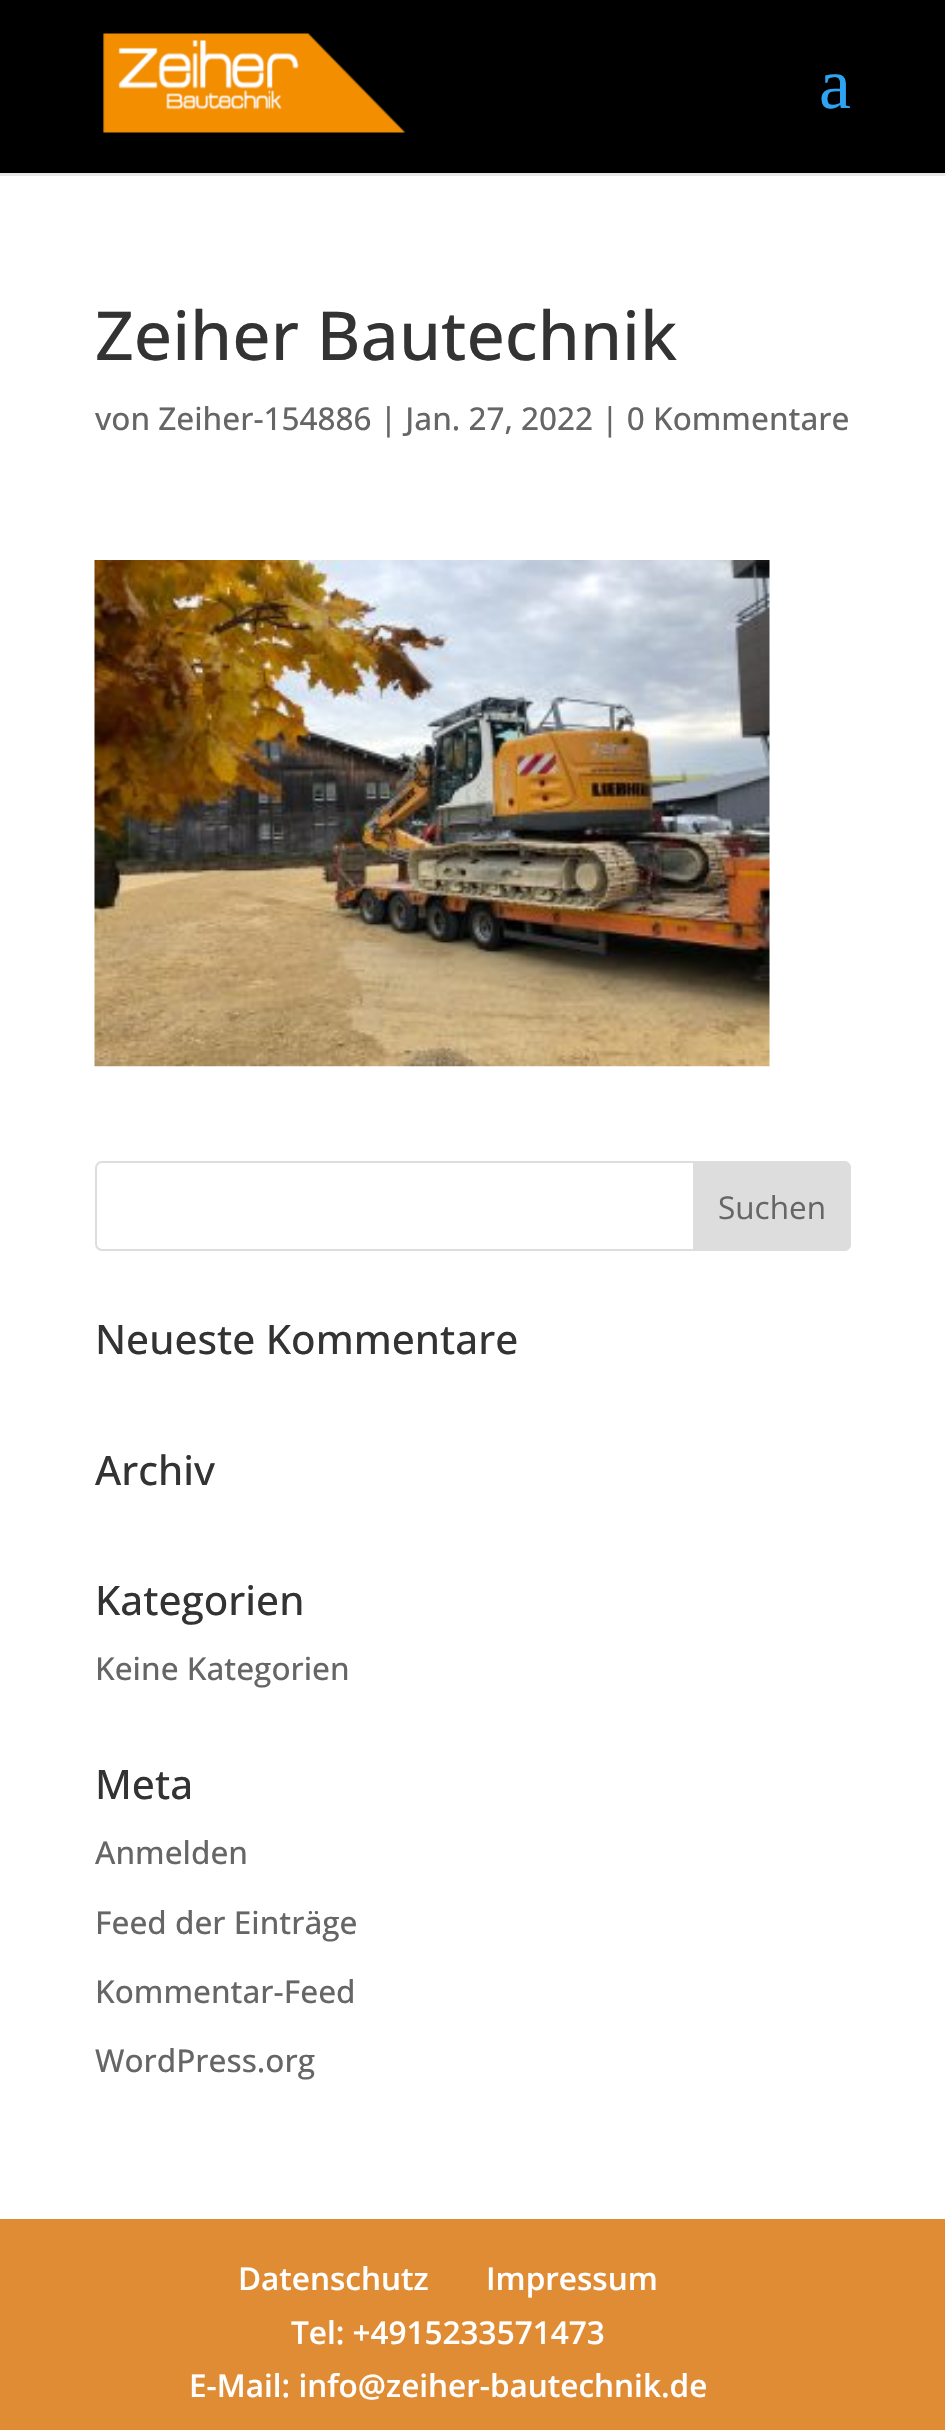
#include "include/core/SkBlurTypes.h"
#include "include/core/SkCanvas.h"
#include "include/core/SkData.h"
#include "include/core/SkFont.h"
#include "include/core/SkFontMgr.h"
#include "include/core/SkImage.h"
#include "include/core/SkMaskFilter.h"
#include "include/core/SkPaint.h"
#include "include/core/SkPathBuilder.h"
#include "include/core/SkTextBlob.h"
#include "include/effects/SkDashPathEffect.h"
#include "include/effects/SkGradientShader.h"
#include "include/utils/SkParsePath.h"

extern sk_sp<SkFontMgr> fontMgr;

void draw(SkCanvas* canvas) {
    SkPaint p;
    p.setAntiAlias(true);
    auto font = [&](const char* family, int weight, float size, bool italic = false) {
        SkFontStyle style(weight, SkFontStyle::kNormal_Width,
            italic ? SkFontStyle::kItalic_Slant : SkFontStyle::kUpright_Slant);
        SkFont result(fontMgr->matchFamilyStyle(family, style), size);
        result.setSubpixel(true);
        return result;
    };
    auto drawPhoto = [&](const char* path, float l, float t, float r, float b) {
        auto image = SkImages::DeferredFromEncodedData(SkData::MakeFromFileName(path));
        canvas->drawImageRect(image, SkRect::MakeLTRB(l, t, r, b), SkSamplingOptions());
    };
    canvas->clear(0xFFFFFFFF);
    p.setColor(0xFFE6E6E6);
    canvas->drawRect(SkRect::MakeLTRB(0, 173, 945, 176), p);
    p.setColor(0xFF000000);
    canvas->drawRect(SkRect::MakeLTRB(0, 0, 945, 173), p);
    drawPhoto("media/1.png", 103, 33, 406, 133);
    auto font1 = font("Liberation Serif", 400, 72);
    p.setColor(0xFF2EA3F2);
    canvas->drawString("a", 819, 108, font1, p);
    auto font2 = font("Open Sans", 500, 67.5f);
    p.setColor(0xFF333333);
    canvas->drawString("Zeiher Bautechnik", 95, 360, font2, p);
    auto font3 = font("Open Sans", 500, 31.5f);
    p.setColor(0xFF666666);
    canvas->drawString("von Zeiher-154886 | Jan. 27, 2022 | 0 Kommentare", 95, 430, font3, p);
    drawPhoto("media/2.png", 94, 560, 770, 1067);
    p.setStyle(SkPaint::kStroke_Style);
    p.setStrokeWidth(2);
    p.setColor(0xFFDDDDDD);
    canvas->drawRoundRect(SkRect::MakeLTRB(96, 1162, 850, 1250), 6, 6, p);
    p.setStyle(SkPaint::kFill_Style);
    canvas->drawPath(SkPathBuilder().moveTo(694, 1162).lineTo(844, 1162).cubicTo(847.5f, 1162, 850, 1164.5f, 850, 1168).lineTo(850, 1244).cubicTo(850, 1247.5f, 847.5f, 1250, 844, 1250).lineTo(694, 1250).close().detach(), p);
    p.setStyle(SkPaint::kStroke_Style);
    canvas->drawPath(SkPathBuilder().moveTo(694, 1162).lineTo(844, 1162).cubicTo(847.5f, 1162, 850, 1164.5f, 850, 1168).lineTo(850, 1244).cubicTo(850, 1247.5f, 847.5f, 1250, 844, 1250).lineTo(694, 1250).close().detach(), p);
    auto font4 = font("Open Sans", 400, 31.5f);
    p.setStyle(SkPaint::kFill_Style);
    p.setColor(0xFF666666);
    canvas->drawString("Suchen", 718, 1219, font4, p);
    auto font5 = font("Open Sans", 500, 40.5f);
    p.setColor(0xFF333333);
    {
        const struct { const char* s; float x, y; } items[] = {
            {"Neueste Kommentare", 95, 1354},
            {"Archiv", 95, 1485},
            {"Kategorien", 95, 1615},
        };
        for (auto [s, x, y] : items) {
            canvas->drawString(s, x, y, font5, p);
        }
    }
    p.setColor(0xFF666666);
    canvas->drawString("Keine Kategorien", 95, 1680, font3, p);
    p.setColor(0xFF333333);
    canvas->drawString("Meta", 95, 1799, font5, p);
    p.setColor(0xFF666666);
    {
        const struct { const char* s; float x, y; } items[] = {
            {"Anmelden", 95, 1864},
            {"Feed der Einträge", 95, 1934},
            {"Kommentar-Feed", 95, 2003},
            {"WordPress.org", 95, 2072},
        };
        for (auto [s, x, y] : items) {
            canvas->drawString(s, x, y, font3, p);
        }
    }
    p.setColor(0xFFE08C34);
    canvas->drawRect(SkRect::MakeLTRB(0, 2219, 945, 2430), p);
    auto font6 = font("Open Sans", 600, 31.5f);
    p.setColor(0xFFFFFFFF);
    {
        const struct { const char* s; float x, y; } items[] = {
            {"Datenschutz", 238, 2290},
            {"Impressum", 486, 2290},
            {"Tel: +4915233571473", 291, 2344},
            {"E-Mail: info@zeiher-bautechnik.de", 189, 2397},
        };
        for (auto [s, x, y] : items) {
            canvas->drawString(s, x, y, font6, p);
        }
    }
}
